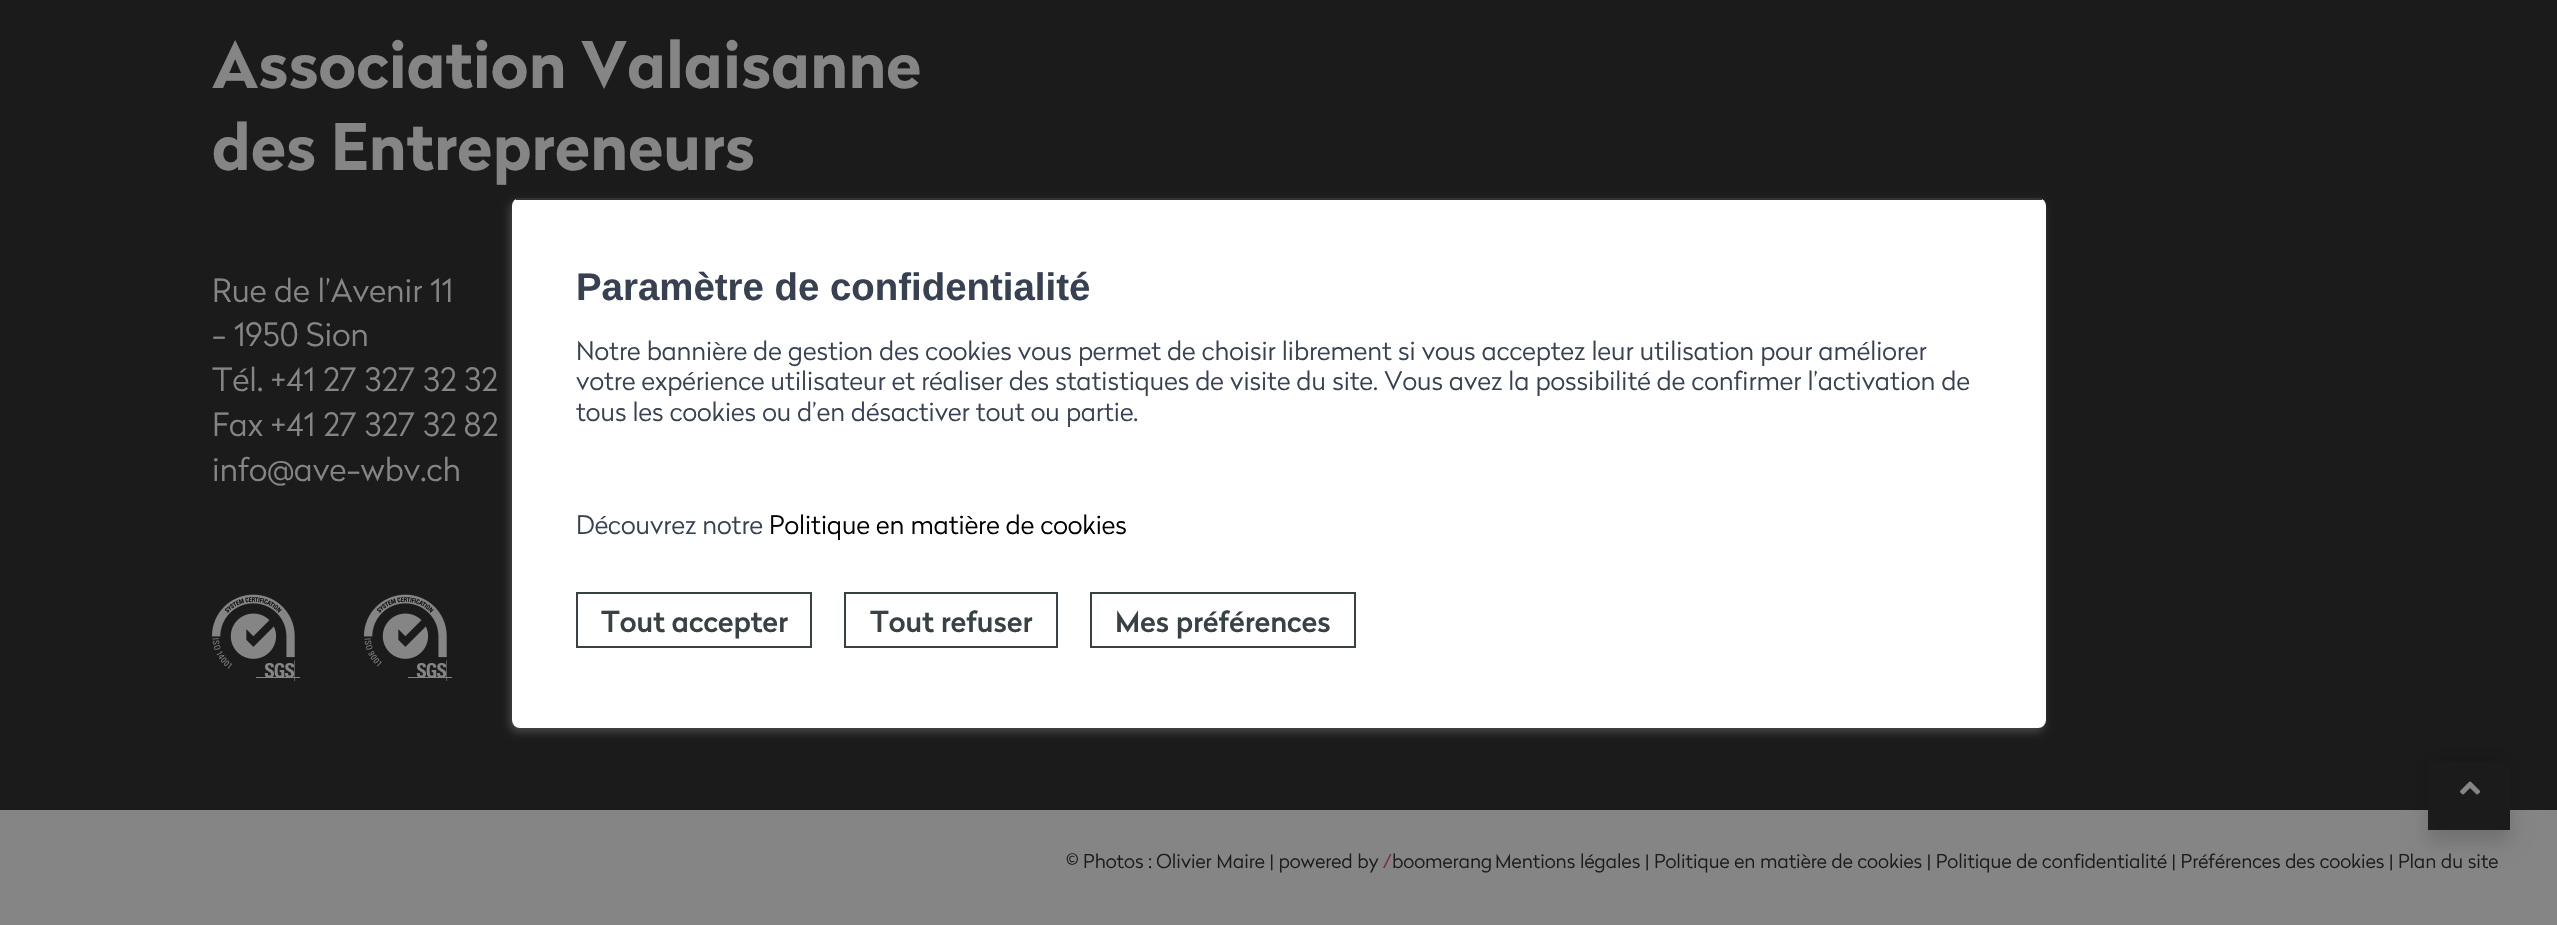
#include "include/core/SkBlurTypes.h"
#include "include/core/SkCanvas.h"
#include "include/core/SkData.h"
#include "include/core/SkFont.h"
#include "include/core/SkFontMgr.h"
#include "include/core/SkImage.h"
#include "include/core/SkMaskFilter.h"
#include "include/core/SkPaint.h"
#include "include/core/SkPathBuilder.h"
#include "include/core/SkTextBlob.h"
#include "include/effects/SkDashPathEffect.h"
#include "include/effects/SkGradientShader.h"
#include "include/utils/SkParsePath.h"

extern sk_sp<SkFontMgr> fontMgr;

void draw(SkCanvas* canvas) {
    SkPaint p;
    p.setAntiAlias(true);
    auto font = [&](const char* family, int weight, float size, bool italic = false) {
        SkFontStyle style(weight, SkFontStyle::kNormal_Width,
            italic ? SkFontStyle::kItalic_Slant : SkFontStyle::kUpright_Slant);
        SkFont result(fontMgr->matchFamilyStyle(family, style), size);
        result.setSubpixel(true);
        return result;
    };
    auto drawPhoto = [&](const char* path, float l, float t, float r, float b) {
        auto image = SkImages::DeferredFromEncodedData(SkData::MakeFromFileName(path));
        canvas->drawImageRect(image, SkRect::MakeLTRB(l, t, r, b), SkSamplingOptions());
    };
    canvas->clear(0xFF1B1B1B);
    auto font1 = font("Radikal", 700, 64);
    p.setColor(0xFF858585);
    canvas->drawString("Association Valaisanne", 212, 88, font1, p);
    canvas->drawString("des Entrepreneurs", 212, 170, font1, p);
    auto font2 = font("Radikal", 300, 32);
    {
        const struct { const char* s; float x, y; } items[] = {
            {"Rue de l’Avenir 11", 212, 302},
            {"- 1950 Sion", 212, 346},
            {"Tél. +41 27 327 32 32", 212, 391},
            {"Fax +41 27 327 32 82", 212, 436},
            {"info@ave-wbv.ch", 212, 481},
        };
        for (auto [s, x, y] : items) {
            canvas->drawString(s, x, y, font2, p);
        }
    }
    drawPhoto("media/1.png", 212, 594, 300, 681);
    drawPhoto("media/2.png", 364, 594, 452, 681);
    canvas->drawRect(SkRect::MakeLTRB(0, 810, 2557, 925), p);
    auto font3 = font("Radikal", 300, 19.2f);
    p.setColor(0xFF1B1B1B);
    canvas->drawString("© Photos : Olivier Maire | powered by", 1066, 868, font3, p);
    p.setColor(0xFF7D263D);
    canvas->drawString("/", 1383, 868, font3, p);
    p.setColor(0xFF1B1B1B);
    canvas->drawString("boomerang", 1392, 868, font3, p);
    canvas->drawString("Mentions légales | Politique en matière de cookies | Politique de confidentialité | Préférences des cookies | Plan du site", 1495, 868, font3, p);
    p.setColor(0x33FFFFFF);
    p.setMaskFilter(SkMaskFilter::MakeBlur(kNormal_SkBlurStyle, 4));
    canvas->drawRoundRect(SkRect::MakeLTRB(510, 202, 2044, 732), 8, 8, p);
    p.setMaskFilter(nullptr);
    p.setColor(0xFFFFFFFF);
    canvas->drawRoundRect(SkRect::MakeLTRB(512, 198, 2046, 728), 8, 8, p);
    p.setColor(0xFF333333);
    canvas->drawRect(SkRect::MakeLTRB(516, 198, 2042, 200), p);
    auto font4 = font("Liberation Sans", 700, 38.4f);
    p.setColor(0xFF374151);
    canvas->drawString("Paramètre de confidentialité", 576, 300, font4, p);
    auto font5 = font("Radikal", 300, 25.6f);
    {
        const struct { const char* s; float x, y; } items[] = {
            {"Notre bannière de gestion des cookies vous permet de choisir librement si vous acceptez leur utilisation pour améliorer", 576, 360},
            {"votre expérience utilisateur et réaliser des statistiques de visite du site. Vous avez la possibilité de confirmer l’activation de", 576, 390},
            {"tous les cookies ou d’en désactiver tout ou partie.", 576, 421},
            {"Découvrez notre", 576, 534},
        };
        for (auto [s, x, y] : items) {
            canvas->drawString(s, x, y, font5, p);
        }
    }
    p.setColor(0xFF000000);
    canvas->drawString("Politique en matière de cookies", 769, 534, font5, p);
    p.setStyle(SkPaint::kStroke_Style);
    p.setStrokeWidth(2);
    p.setColor(0xFF384144);
    canvas->drawRect(SkRect::MakeLTRB(577, 593, 811, 647), p);
    auto font6 = font("Radikal", 500, 28.75f);
    p.setStyle(SkPaint::kFill_Style);
    canvas->drawString("Tout accepter", 601, 632, font6, p);
    p.setStyle(SkPaint::kStroke_Style);
    canvas->drawRect(SkRect::MakeLTRB(845, 593, 1057, 647), p);
    p.setStyle(SkPaint::kFill_Style);
    canvas->drawString("Tout refuser", 870, 632, font6, p);
    p.setStyle(SkPaint::kStroke_Style);
    canvas->drawRect(SkRect::MakeLTRB(1091, 593, 1355, 647), p);
    p.setStyle(SkPaint::kFill_Style);
    canvas->drawString("Mes préférences", 1115, 632, font6, p);
    p.setColor(0x29000000);
    p.setMaskFilter(SkMaskFilter::MakeBlur(kNormal_SkBlurStyle, 9));
    canvas->drawRect(SkRect::MakeLTRB(2428, 760, 2510, 842), p);
    p.setMaskFilter(nullptr);
    p.setColor(0xFF1B1B1B);
    canvas->drawRect(SkRect::MakeLTRB(2428, 762, 2510, 830), p);
    drawPhoto("media/3.png", 2460, 781, 2480, 795);
}
